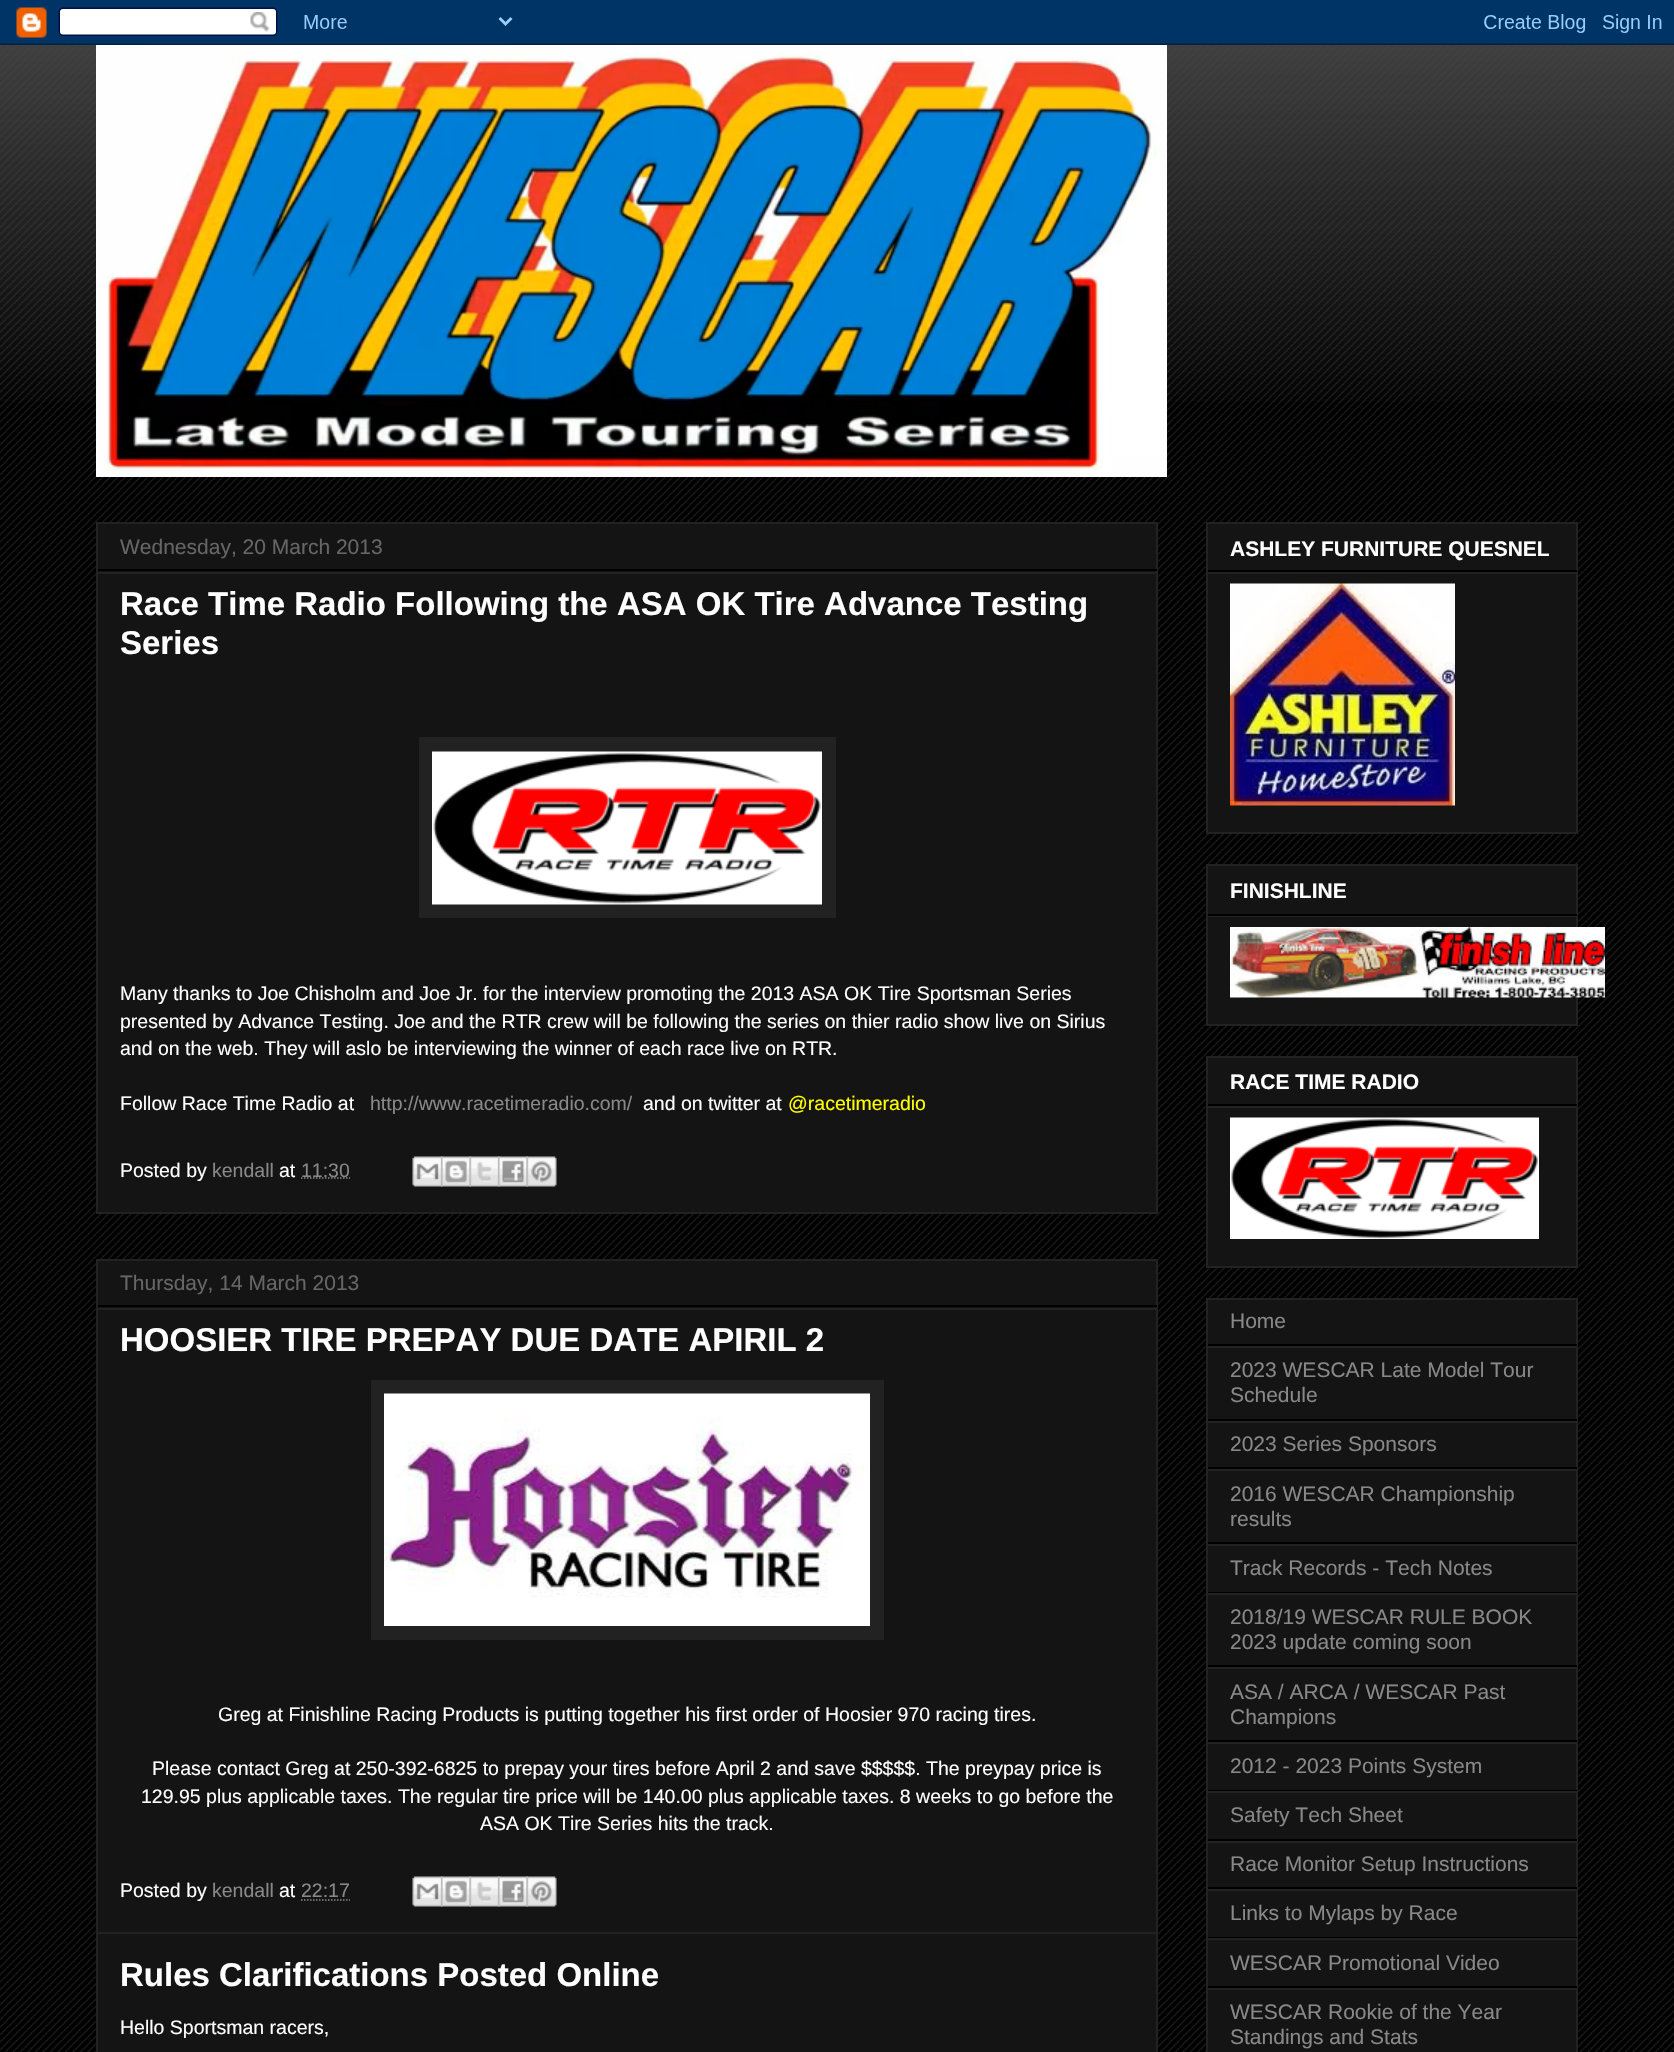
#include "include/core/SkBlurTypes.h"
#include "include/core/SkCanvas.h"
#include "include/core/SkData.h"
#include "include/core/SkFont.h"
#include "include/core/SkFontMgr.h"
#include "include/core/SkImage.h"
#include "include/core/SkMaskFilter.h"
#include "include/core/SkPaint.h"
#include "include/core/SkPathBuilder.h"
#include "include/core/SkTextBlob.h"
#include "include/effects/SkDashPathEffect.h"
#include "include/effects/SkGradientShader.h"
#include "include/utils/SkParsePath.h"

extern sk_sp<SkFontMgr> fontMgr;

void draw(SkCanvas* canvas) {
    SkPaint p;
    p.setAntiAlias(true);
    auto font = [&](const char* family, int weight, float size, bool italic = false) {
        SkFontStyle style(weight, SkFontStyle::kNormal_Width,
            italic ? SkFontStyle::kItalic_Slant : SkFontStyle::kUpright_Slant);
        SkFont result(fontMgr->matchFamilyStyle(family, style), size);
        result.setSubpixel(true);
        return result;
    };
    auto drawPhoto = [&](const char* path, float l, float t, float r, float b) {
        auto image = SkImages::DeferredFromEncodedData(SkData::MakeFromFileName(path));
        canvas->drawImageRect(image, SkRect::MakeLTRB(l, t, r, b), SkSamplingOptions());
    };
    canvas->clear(0xFF000000);
    drawPhoto("media/1.png", 0, 43, 1674, 2052);
    drawPhoto("media/3.png", 0, 43, 1674, 402);
    drawPhoto("media/2.png", 0, 0, 1674, 45);
    drawPhoto("media/4.png", 96, 45, 1167, 477);
    p.setColor(0xFF141414);
    canvas->drawRect(SkRect::MakeLTRB(97, 523, 1157, 1213), p);
    p.setStyle(SkPaint::kStroke_Style);
    p.setStrokeWidth(2);
    p.setColor(0xFF222222);
    canvas->drawRect(SkRect::MakeLTRB(97, 523, 1157, 1213), p);
    p.setStyle(SkPaint::kFill_Style);
    p.setColor(0xFF000000);
    canvas->drawRect(SkRect::MakeLTRB(98, 569, 1157, 571), p);
    auto font1 = font("Liberation Sans", 400, 21);
    p.setColor(0xFF666666);
    canvas->drawString("Wednesday, 20 March 2013", 120, 554, font1, p);
    p.setColor(0xFF222222);
    canvas->drawRect(SkRect::MakeLTRB(98, 572, 1157, 574), p);
    auto font2 = font("Liberation Sans", 700, 33);
    p.setColor(0xFFFFFFFF);
    canvas->drawString("Race Time Radio Following the ASA OK Tire Advance Testing", 120, 615, font2, p);
    canvas->drawString("Series", 120, 654, font2, p);
    p.setColor(0xFF222222);
    canvas->drawRect(SkRect::MakeLTRB(419, 737, 836, 918), p);
    drawPhoto("media/5.png", 432, 751, 822, 905);
    auto font3 = font("Liberation Sans", 400, 19.5f);
    p.setColor(0xFFFFFFFF);
    {
        const struct { const char* s; float x, y; } items[] = {
            {"Many thanks to Joe Chisholm and Joe Jr. for the interview promoting the 2013 ASA OK Tire Sportsman Series", 120, 1000},
            {"presented by Advance Testing. Joe and the RTR crew will be following the series on thier radio show live on Sirius", 120, 1028},
            {"and on the web. They will aslo be interviewing the winner of each race live on RTR.", 120, 1055},
            {"Follow Race Time Radio at", 120, 1110},
        };
        for (auto [s, x, y] : items) {
            canvas->drawString(s, x, y, font3, p);
        }
    }
    p.setColor(0xFF888888);
    canvas->drawString("http://www.racetimeradio.com/", 370, 1110, font3, p);
    p.setColor(0xFFFFFFFF);
    canvas->drawString("and on twitter at", 643, 1110, font3, p);
    p.setColor(0xFFFFFF00);
    canvas->drawString("@racetimeradio", 788, 1110, font3, p);
    p.setColor(0xFFFFFFFF);
    canvas->drawString("Posted by", 120, 1177, font3, p);
    p.setColor(0xFF888888);
    canvas->drawString("kendall", 212, 1177, font3, p);
    p.setColor(0xFFFFFFFF);
    canvas->drawString("at", 279, 1177, font3, p);
    p.setStyle(SkPaint::kStroke_Style);
    p.setStrokeWidth(1.5f);
    p.setColor(0xFF888888);
    p.setPathEffect(SkDashPathEffect::Make({{1.5f, 1.5f}}, 0));
    canvas->drawPath(SkPathBuilder().moveTo(301, 1178).lineTo(350, 1178).detach(), p);
    p.setPathEffect(nullptr);
    p.setStyle(SkPaint::kFill_Style);
    canvas->drawString("11:30", 301, 1177, font3, p);
    drawPhoto("media/6.png", 412, 1156, 443, 1187);
    drawPhoto("media/7.png", 441, 1156, 471, 1187);
    drawPhoto("media/8.png", 469, 1156, 500, 1187);
    drawPhoto("media/9.png", 498, 1156, 528, 1187);
    drawPhoto("media/10.png", 526, 1156, 557, 1187);
    p.setColor(0xFF141414);
    canvas->drawRect(SkRect::MakeLTRB(97, 1260, 1157, 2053), p);
    p.setStyle(SkPaint::kStroke_Style);
    p.setStrokeWidth(2);
    p.setColor(0xFF222222);
    canvas->drawRect(SkRect::MakeLTRB(97, 1260, 1157, 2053), p);
    p.setStyle(SkPaint::kFill_Style);
    p.setColor(0xFF000000);
    canvas->drawRect(SkRect::MakeLTRB(98, 1305, 1157, 1307), p);
    p.setColor(0xFF666666);
    canvas->drawString("Thursday, 14 March 2013", 120, 1290, font1, p);
    p.setColor(0xFF222222);
    canvas->drawRect(SkRect::MakeLTRB(98, 1308, 1157, 1310), p);
    p.setColor(0xFFFFFFFF);
    canvas->drawString("HOOSIER TIRE PREPAY DUE DATE APIRIL 2", 120, 1351, font2, p);
    p.setColor(0xFF222222);
    canvas->drawRect(SkRect::MakeLTRB(371, 1380, 884, 1640), p);
    drawPhoto("media/11.png", 384, 1393, 870, 1626);
    p.setColor(0xFFFFFFFF);
    {
        const struct { const char* s; float x, y; } items[] = {
            {"Greg at Finishline Racing Products is putting together his first order of Hoosier 970 racing tires.", 218, 1721},
            {"Please contact Greg at 250-392-6825 to prepay your tires before April 2 and save $$$$$. The preypay price is", 152, 1775},
            {"129.95 plus applicable taxes. The regular tire price will be 140.00 plus applicable taxes. 8 weeks to go before the", 141, 1803},
            {"ASA OK Tire Series hits the track.", 480, 1830},
            {"Posted by", 120, 1897},
        };
        for (auto [s, x, y] : items) {
            canvas->drawString(s, x, y, font3, p);
        }
    }
    p.setColor(0xFF888888);
    canvas->drawString("kendall", 212, 1897, font3, p);
    p.setColor(0xFFFFFFFF);
    canvas->drawString("at", 279, 1897, font3, p);
    p.setColor(0xFF888888);
    canvas->drawString("22:17", 301, 1897, font3, p);
    p.setStyle(SkPaint::kStroke_Style);
    p.setStrokeWidth(1.5f);
    p.setPathEffect(SkDashPathEffect::Make({{1.5f, 1.5f}}, 0));
    canvas->drawPath(SkPathBuilder().moveTo(301, 1900).lineTo(350, 1900).detach(), p);
    p.setPathEffect(nullptr);
    drawPhoto("media/6.png", 412, 1876, 443, 1907);
    drawPhoto("media/7.png", 441, 1876, 471, 1907);
    drawPhoto("media/8.png", 469, 1876, 500, 1907);
    drawPhoto("media/9.png", 498, 1876, 528, 1907);
    drawPhoto("media/10.png", 526, 1876, 557, 1907);
    p.setStyle(SkPaint::kFill_Style);
    p.setColor(0xFF222222);
    canvas->drawRect(SkRect::MakeLTRB(98, 1932, 1157, 1934), p);
    p.setColor(0xFFFFFFFF);
    canvas->drawString("Rules Clarifications Posted Online", 120, 1986, font2, p);
    canvas->drawString("Hello Sportsman racers,", 120, 2034, font3, p);
    p.setColor(0xFF141414);
    canvas->drawRect(SkRect::MakeLTRB(1207, 523, 1577, 833), p);
    p.setStyle(SkPaint::kStroke_Style);
    p.setStrokeWidth(2);
    p.setColor(0xFF222222);
    canvas->drawRect(SkRect::MakeLTRB(1207, 523, 1577, 833), p);
    p.setStyle(SkPaint::kFill_Style);
    p.setColor(0xFF000000);
    canvas->drawRect(SkRect::MakeLTRB(1208, 570, 1577, 572), p);
    auto font4 = font("Liberation Sans", 700, 21);
    p.setColor(0xFFFFFFFF);
    canvas->drawString("ASHLEY FURNITURE QUESNEL", 1230, 556, font4, p);
    p.setColor(0xFF222222);
    canvas->drawRect(SkRect::MakeLTRB(1208, 572, 1577, 574), p);
    drawPhoto("media/12.png", 1230, 583, 1455, 806);
    p.setColor(0xFF141414);
    canvas->drawRect(SkRect::MakeLTRB(1207, 865, 1577, 1025), p);
    p.setStyle(SkPaint::kStroke_Style);
    p.setColor(0xFF222222);
    canvas->drawRect(SkRect::MakeLTRB(1207, 865, 1577, 1025), p);
    p.setStyle(SkPaint::kFill_Style);
    p.setColor(0xFF000000);
    canvas->drawRect(SkRect::MakeLTRB(1208, 914, 1577, 916), p);
    p.setColor(0xFFFFFFFF);
    canvas->drawString("FINISHLINE", 1230, 898, font4, p);
    p.setColor(0xFF222222);
    canvas->drawRect(SkRect::MakeLTRB(1208, 916, 1577, 917), p);
    drawPhoto("media/13.png", 1230, 927, 1605, 998);
    p.setColor(0xFF141414);
    canvas->drawRect(SkRect::MakeLTRB(1207, 1057, 1577, 1267), p);
    p.setStyle(SkPaint::kStroke_Style);
    p.setColor(0xFF222222);
    canvas->drawRect(SkRect::MakeLTRB(1207, 1057, 1577, 1267), p);
    p.setStyle(SkPaint::kFill_Style);
    p.setColor(0xFF000000);
    canvas->drawRect(SkRect::MakeLTRB(1208, 1104, 1577, 1106), p);
    p.setColor(0xFFFFFFFF);
    canvas->drawString("RACE TIME RADIO", 1230, 1089, font4, p);
    p.setColor(0xFF222222);
    canvas->drawRect(SkRect::MakeLTRB(1208, 1106, 1577, 1108), p);
    drawPhoto("media/14.png", 1230, 1117, 1539, 1239);
    p.setColor(0xFF141414);
    canvas->drawRect(SkRect::MakeLTRB(1207, 1299, 1577, 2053), p);
    p.setStyle(SkPaint::kStroke_Style);
    p.setColor(0xFF222222);
    canvas->drawRect(SkRect::MakeLTRB(1207, 1299, 1577, 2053), p);
    p.setStyle(SkPaint::kFill_Style);
    p.setColor(0xFF000000);
    canvas->drawRect(SkRect::MakeLTRB(1208, 1344, 1577, 1346), p);
    p.setColor(0xFF888888);
    canvas->drawString("Home", 1230, 1328, font1, p);
    p.setColor(0xFF222222);
    canvas->drawRect(SkRect::MakeLTRB(1208, 1346, 1577, 1348), p);
    p.setColor(0xFF000000);
    canvas->drawRect(SkRect::MakeLTRB(1208, 1419, 1577, 1421), p);
    p.setColor(0xFF888888);
    canvas->drawString("2023 WESCAR Late Model Tour", 1230, 1377, font1, p);
    canvas->drawString("Schedule", 1230, 1402, font1, p);
    p.setColor(0xFF222222);
    canvas->drawRect(SkRect::MakeLTRB(1208, 1421, 1577, 1423), p);
    p.setColor(0xFF000000);
    canvas->drawRect(SkRect::MakeLTRB(1208, 1467, 1577, 1469), p);
    p.setColor(0xFF888888);
    canvas->drawString("2023 Series Sponsors", 1230, 1451, font1, p);
    p.setColor(0xFF222222);
    canvas->drawRect(SkRect::MakeLTRB(1208, 1469, 1577, 1471), p);
    p.setColor(0xFF000000);
    canvas->drawRect(SkRect::MakeLTRB(1208, 1542, 1577, 1544), p);
    p.setColor(0xFF888888);
    canvas->drawString("2016 WESCAR Championship", 1230, 1501, font1, p);
    canvas->drawString("results", 1230, 1526, font1, p);
    p.setColor(0xFF222222);
    canvas->drawRect(SkRect::MakeLTRB(1208, 1544, 1577, 1546), p);
    p.setColor(0xFF000000);
    canvas->drawRect(SkRect::MakeLTRB(1208, 1592, 1577, 1593), p);
    p.setColor(0xFF888888);
    canvas->drawString("Track Records - Tech Notes", 1230, 1575, font1, p);
    p.setColor(0xFF222222);
    canvas->drawRect(SkRect::MakeLTRB(1208, 1593, 1577, 1595), p);
    p.setColor(0xFF000000);
    canvas->drawRect(SkRect::MakeLTRB(1208, 1665, 1577, 1667), p);
    p.setColor(0xFF888888);
    canvas->drawString("2018/19 WESCAR RULE BOOK", 1230, 1624, font1, p);
    canvas->drawString("2023 update coming soon", 1230, 1649, font1, p);
    p.setColor(0xFF222222);
    canvas->drawRect(SkRect::MakeLTRB(1208, 1667, 1577, 1669), p);
    p.setColor(0xFF000000);
    canvas->drawRect(SkRect::MakeLTRB(1208, 1740, 1577, 1742), p);
    p.setColor(0xFF888888);
    canvas->drawString("ASA / ARCA / WESCAR Past", 1230, 1699, font1, p);
    canvas->drawString("Champions", 1230, 1724, font1, p);
    p.setColor(0xFF222222);
    canvas->drawRect(SkRect::MakeLTRB(1208, 1742, 1577, 1744), p);
    p.setColor(0xFF000000);
    canvas->drawRect(SkRect::MakeLTRB(1208, 1790, 1577, 1791), p);
    p.setColor(0xFF888888);
    canvas->drawString("2012 - 2023 Points System", 1230, 1773, font1, p);
    p.setColor(0xFF222222);
    canvas->drawRect(SkRect::MakeLTRB(1208, 1791, 1577, 1793), p);
    p.setColor(0xFF000000);
    canvas->drawRect(SkRect::MakeLTRB(1208, 1839, 1577, 1841), p);
    p.setColor(0xFF888888);
    canvas->drawString("Safety Tech Sheet", 1230, 1822, font1, p);
    p.setColor(0xFF222222);
    canvas->drawRect(SkRect::MakeLTRB(1208, 1841, 1577, 1843), p);
    p.setColor(0xFF000000);
    canvas->drawRect(SkRect::MakeLTRB(1208, 1887, 1577, 1889), p);
    p.setColor(0xFF888888);
    canvas->drawString("Race Monitor Setup Instructions", 1230, 1871, font1, p);
    p.setColor(0xFF222222);
    canvas->drawRect(SkRect::MakeLTRB(1208, 1889, 1577, 1891), p);
    p.setColor(0xFF000000);
    canvas->drawRect(SkRect::MakeLTRB(1208, 1937, 1577, 1938), p);
    p.setColor(0xFF888888);
    canvas->drawString("Links to Mylaps by Race", 1230, 1920, font1, p);
    p.setColor(0xFF222222);
    canvas->drawRect(SkRect::MakeLTRB(1208, 1938, 1577, 1940), p);
    p.setColor(0xFF000000);
    canvas->drawRect(SkRect::MakeLTRB(1208, 1986, 1577, 1988), p);
    p.setColor(0xFF888888);
    canvas->drawString("WESCAR Promotional Video", 1230, 1970, font1, p);
    p.setColor(0xFF222222);
    canvas->drawRect(SkRect::MakeLTRB(1208, 1988, 1577, 1990), p);
    p.setColor(0xFF888888);
    canvas->drawString("WESCAR Rookie of the Year", 1230, 2019, font1, p);
    canvas->drawString("Standings and Stats", 1230, 2044, font1, p);
}
